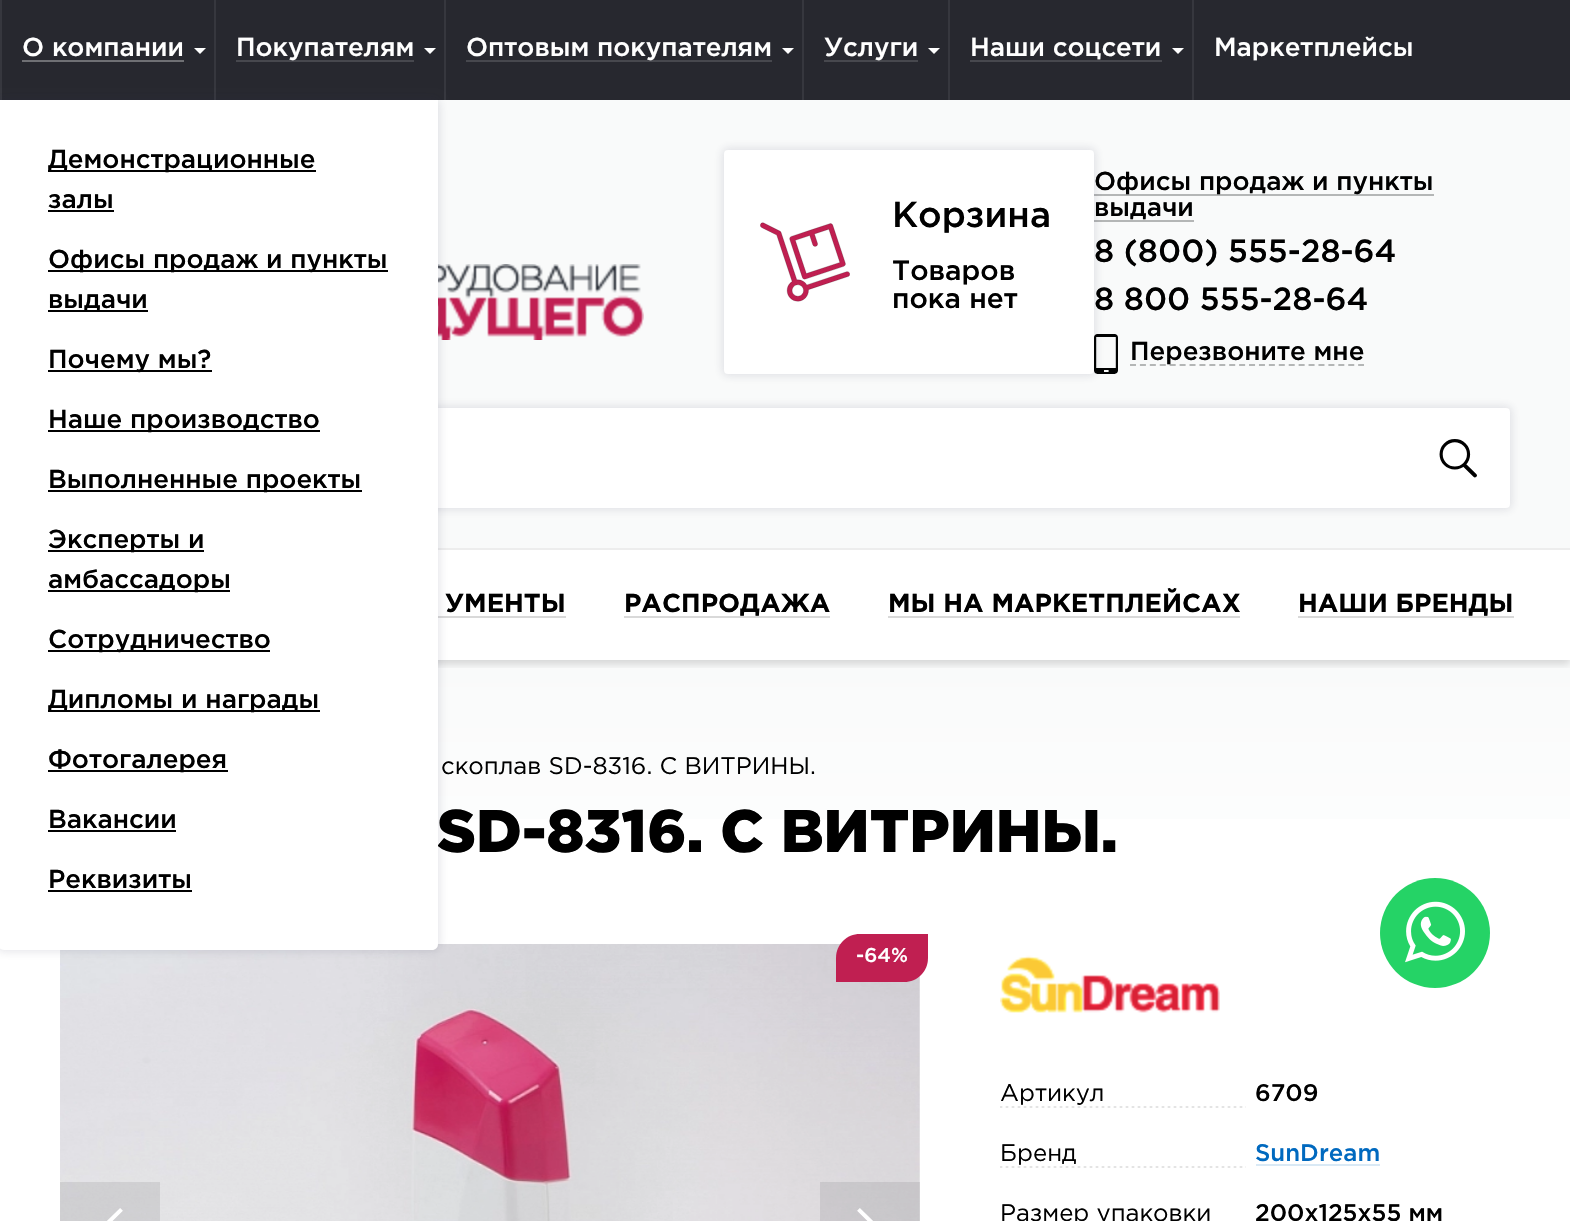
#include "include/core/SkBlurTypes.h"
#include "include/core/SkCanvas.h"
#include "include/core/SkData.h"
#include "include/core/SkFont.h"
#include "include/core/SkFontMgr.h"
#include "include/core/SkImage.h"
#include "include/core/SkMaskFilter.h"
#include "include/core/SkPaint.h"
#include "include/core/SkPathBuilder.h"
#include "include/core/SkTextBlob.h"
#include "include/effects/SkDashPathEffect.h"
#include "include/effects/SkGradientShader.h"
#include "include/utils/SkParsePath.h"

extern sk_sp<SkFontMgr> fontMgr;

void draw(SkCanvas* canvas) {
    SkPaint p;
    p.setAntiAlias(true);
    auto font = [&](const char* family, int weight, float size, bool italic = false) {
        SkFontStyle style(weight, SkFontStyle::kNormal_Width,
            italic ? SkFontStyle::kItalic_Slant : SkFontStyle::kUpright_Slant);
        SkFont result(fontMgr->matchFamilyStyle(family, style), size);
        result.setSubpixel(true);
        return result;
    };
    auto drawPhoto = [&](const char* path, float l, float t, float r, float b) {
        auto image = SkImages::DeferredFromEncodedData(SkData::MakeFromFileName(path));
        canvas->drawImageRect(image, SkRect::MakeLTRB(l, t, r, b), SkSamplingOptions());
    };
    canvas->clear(0xFF27282F);
    p.setColor(0xFF36373E);
    canvas->drawRect(SkRect::MakeLTRB(0, 0, 2, 100), p);
    auto font1 = font("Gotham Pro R", 500, 26);
    p.setColor(0xFFFFFFFF);
    canvas->drawString("О компании", 22, 56, font1, p);
    p.setColor(0xFF6F7074);
    canvas->drawRect(SkRect::MakeLTRB(22, 60, 184, 62), p);
    p.setColor(0xFFFFFFFF);
    canvas->drawPath(SkPathBuilder().moveTo(194, 48).lineTo(206, 48).lineTo(200, 54).close().detach(), p);
    {
        const struct { float l, t, r, b; SkColor color; } items[] = {
            {214, 0, 216, 100, 0xFF36373E},
            {444, 0, 446, 100, 0xFF36373E},
            {0, 550, 1570, 1221, 0xFFFFFFFF},
            {438, 100, 1570, 548, 0xFFF9FAFA},
            {438, 548, 1570, 550, 0xFFEDEDED},
        };
        for (auto [l, t, r, b, color] : items) {
            p.setColor(color);
            canvas->drawRect(SkRect::MakeLTRB(l, t, r, b), p);
        }
    }
    drawPhoto("media/1.png", 438, 264, 644, 340);
    p.setColor(0x1F2F3352);
    p.setMaskFilter(SkMaskFilter::MakeBlur(kNormal_SkBlurStyle, 4));
    canvas->drawRoundRect(SkRect::MakeLTRB(58, 406, 1512, 510), 6, 6, p);
    p.setMaskFilter(nullptr);
    p.setColor(0xFFFFFFFF);
    canvas->drawRoundRect(SkRect::MakeLTRB(60, 408, 1510, 508), 4, 4, p);
    {
        const SkColor colors[] = {0xFFF9FAFA, 0xFFFFFFFF};
        const float stops[] = {0, 1};
        const SkPoint ends[] = {{785, 660}, {785, 932}};
        p.setShader(SkGradientShader::MakeLinear(ends, colors, stops, 2, SkTileMode::kClamp));
        p.setAlpha(255);
    }
    canvas->drawRect(SkRect::MakeLTRB(438, 660, 1570, 819), p);
    canvas->save();
    canvas->clipRect(SkRect::MakeLTRB(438, 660, 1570, 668));
    p.setShader(nullptr);
    p.setColor(0x26000000);
    p.setMaskFilter(SkMaskFilter::MakeBlur(kNormal_SkBlurStyle, 4));
    canvas->drawRect(SkRect::MakeLTRB(0, 554, 1570, 664), p);
    p.setMaskFilter(nullptr);
    canvas->restore();
    p.setColor(0xFFD9D9D9);
    canvas->drawRect(SkRect::MakeLTRB(438, 616, 566, 618), p);
    drawPhoto("media/5.png", 60, 944, 920, 1221);
    p.setColor(0x1F2F3352);
    p.setMaskFilter(SkMaskFilter::MakeBlur(kNormal_SkBlurStyle, 4));
    canvas->drawRoundRect(SkRect::MakeLTRB(-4, 98, 440, 952), 8, 8, p);
    p.setMaskFilter(nullptr);
    auto font2 = font("Gotham Pro R", 900, 60);
    p.setColor(0xFF000000);
    canvas->drawString("SD-8316. С ВИТРИНЫ.", 437, 852, font2, p);
    p.setColor(0xFFFFFFFF);
    canvas->drawPath(SkPathBuilder().moveTo(-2, 100).lineTo(438, 100).lineTo(438, 944).cubicTo(438, 947.5f, 435.5f, 950, 432, 950).lineTo(4, 950).cubicTo(0.5f, 950, -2, 947.5f, -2, 944).close().detach(), p);
    p.setColor(0xFF000000);
    canvas->drawRect(SkRect::MakeLTRB(48, 170, 316, 172), p);
    canvas->drawString("Демонстрационные", 48, 168, font1, p);
    canvas->drawString("залы", 48, 208, font1, p);
    canvas->drawRect(SkRect::MakeLTRB(48, 210, 114, 212), p);
    canvas->drawRect(SkRect::MakeLTRB(48, 270, 388, 272), p);
    canvas->drawString("Офисы продаж и пункты", 48, 268, font1, p);
    canvas->drawRect(SkRect::MakeLTRB(48, 310, 148, 312), p);
    canvas->drawString("выдачи", 48, 308, font1, p);
    canvas->drawRect(SkRect::MakeLTRB(48, 370, 212, 372), p);
    canvas->drawString("Почему мы?", 48, 368, font1, p);
    canvas->drawRect(SkRect::MakeLTRB(48, 430, 320, 432), p);
    canvas->drawString("Наше производство", 48, 428, font1, p);
    canvas->drawRect(SkRect::MakeLTRB(48, 490, 362, 492), p);
    canvas->drawString("Выполненные проекты", 48, 488, font1, p);
    canvas->drawRect(SkRect::MakeLTRB(48, 550, 204, 552), p);
    canvas->drawString("Эксперты и", 48, 548, font1, p);
    canvas->drawRect(SkRect::MakeLTRB(48, 590, 230, 592), p);
    canvas->drawString("амбассадоры", 48, 588, font1, p);
    canvas->drawRect(SkRect::MakeLTRB(48, 650, 270, 652), p);
    canvas->drawString("Сотрудничество", 48, 648, font1, p);
    canvas->drawRect(SkRect::MakeLTRB(48, 710, 320, 712), p);
    canvas->drawString("Дипломы и награды", 48, 708, font1, p);
    canvas->drawRect(SkRect::MakeLTRB(48, 770, 228, 772), p);
    canvas->drawString("Фотогалерея", 48, 768, font1, p);
    canvas->drawString("Вакансии", 48, 828, font1, p);
    canvas->drawRect(SkRect::MakeLTRB(48, 830, 176, 832), p);
    canvas->drawString("Реквизиты", 48, 888, font1, p);
    canvas->drawRect(SkRect::MakeLTRB(48, 890, 192, 892), p);
    p.setColor(0xFF36373E);
    canvas->drawRect(SkRect::MakeLTRB(1192, 0, 1194, 100), p);
    p.setColor(0xFFFFFFFF);
    canvas->drawString("Маркетплейсы", 1214, 56, font1, p);
    p.setColor(0xFF47484E);
    canvas->drawRect(SkRect::MakeLTRB(236, 60, 414, 62), p);
    p.setColor(0xFFFFFFFF);
    canvas->drawString("Покупателям", 236, 56, font1, p);
    canvas->drawPath(SkPathBuilder().moveTo(424, 48).lineTo(436, 48).lineTo(430, 54).close().detach(), p);
    p.setColor(0xFF47484E);
    canvas->drawRect(SkRect::MakeLTRB(466, 60, 772, 62), p);
    p.setColor(0xFFFFFFFF);
    canvas->drawString("Оптовым покупателям", 466, 56, font1, p);
    canvas->drawPath(SkPathBuilder().moveTo(782, 48).lineTo(794, 48).lineTo(788, 54).close().detach(), p);
    p.setColor(0xFF36373E);
    canvas->drawRect(SkRect::MakeLTRB(802, 0, 804, 100), p);
    p.setColor(0xFF47484E);
    canvas->drawRect(SkRect::MakeLTRB(824, 60, 918, 62), p);
    p.setColor(0xFFFFFFFF);
    canvas->drawString("Услуги", 824, 56, font1, p);
    canvas->drawPath(SkPathBuilder().moveTo(928, 48).lineTo(940, 48).lineTo(934, 54).close().detach(), p);
    p.setColor(0xFF36373E);
    canvas->drawRect(SkRect::MakeLTRB(948, 0, 950, 100), p);
    p.setColor(0xFFFFFFFF);
    canvas->drawString("Наши соцсети", 970, 56, font1, p);
    p.setColor(0xFF47484E);
    canvas->drawRect(SkRect::MakeLTRB(970, 60, 1162, 62), p);
    p.setColor(0xFFFFFFFF);
    canvas->drawPath(SkPathBuilder().moveTo(1172, 48).lineTo(1184, 48).lineTo(1178, 54).close().detach(), p);
    p.setColor(0xFFB4B6B6);
    canvas->drawRect(SkRect::MakeLTRB(1094, 194, 1434, 196), p);
    canvas->drawRect(SkRect::MakeLTRB(1094, 220, 1194, 222), p);
    p.setColor(0x1F2F3352);
    p.setMaskFilter(SkMaskFilter::MakeBlur(kNormal_SkBlurStyle, 4));
    canvas->drawRoundRect(SkRect::MakeLTRB(722, 148, 1096, 376), 6, 6, p);
    p.setMaskFilter(nullptr);
    p.setColor(0xFFFFFFFF);
    canvas->drawRoundRect(SkRect::MakeLTRB(724, 150, 1094, 374), 4, 4, p);
    auto font3 = font("Gotham Pro R", 500, 36);
    p.setColor(0xFF000000);
    canvas->drawString("Корзина", 892, 227, font3, p);
    drawPhoto("media/2.png", 760, 222, 850, 302);
    auto font4 = font("Gotham Pro R", 500, 28);
    canvas->drawString("Товаров", 892, 280, font4, p);
    canvas->drawString("пока нет", 892, 308, font4, p);
    canvas->drawString("Офисы продаж и пункты", 1094, 190, font1, p);
    canvas->drawString("выдачи", 1094, 216, font1, p);
    auto font5 = font("Gotham Pro R", 500, 32);
    canvas->drawString("8 (800) 555-28-64", 1094, 262, font5, p);
    canvas->drawString("8 800 555-28-64", 1094, 310, font5, p);
    drawPhoto("media/3.png", 1094, 334, 1118, 374);
    p.setStyle(SkPaint::kStroke_Style);
    p.setStrokeWidth(2);
    p.setColor(0xFFB4B6B6);
    p.setPathEffect(SkDashPathEffect::Make({{6, 3.92f}}, 0));
    canvas->drawPath(SkPathBuilder().moveTo(1130, 365).lineTo(1364, 365).detach(), p);
    p.setPathEffect(nullptr);
    p.setStyle(SkPaint::kFill_Style);
    p.setColor(0xFF000000);
    canvas->drawString("Перезвоните мне", 1130, 360, font1, p);
    drawPhoto("media/4.png", 1439, 439, 1477, 478);
    auto font6 = font("Gotham Pro R", 700, 26);
    canvas->drawString("УМЕНТЫ", 445, 612, font6, p);
    canvas->drawString("РАСПРОДАЖА", 624, 612, font6, p);
    p.setColor(0xFFD9D9D9);
    canvas->drawRect(SkRect::MakeLTRB(624, 616, 830, 618), p);
    p.setColor(0xFF000000);
    canvas->drawString("МЫ НА МАРКЕТПЛЕЙСАХ", 888, 612, font6, p);
    p.setColor(0xFFD9D9D9);
    canvas->drawRect(SkRect::MakeLTRB(888, 616, 1240, 618), p);
    p.setColor(0xFF000000);
    canvas->drawString("НАШИ БРЕНДЫ", 1298, 612, font6, p);
    p.setColor(0xFFD9D9D9);
    canvas->drawRect(SkRect::MakeLTRB(1298, 616, 1514, 618), p);
    auto font7 = font("Gotham Pro R", 400, 24);
    p.setColor(0xFF000000);
    canvas->drawString("скоплав SD-8316. С ВИТРИНЫ.", 441, 774, font7, p);
    p.setColor(0x1A27282F);
    canvas->drawRect(SkRect::MakeLTRB(60, 1182, 160, 1221), p);
    drawPhoto("media/6.png", 107, 1208, 123, 1221);
    canvas->drawRect(SkRect::MakeLTRB(820, 1182, 920, 1221), p);
    drawPhoto("media/7.png", 857, 1208, 873, 1221);
    p.setColor(0xFFC01F51);
    canvas->drawPath(SkPathBuilder().moveTo(860, 934).lineTo(928, 934).lineTo(928, 958).cubicTo(928, 971.5f, 917.5f, 982, 904, 982).lineTo(836, 982).lineTo(836, 958).cubicTo(836, 944.5f, 846.5f, 934, 860, 934).close().detach(), p);
    auto font8 = font("Gotham Pro R", 500, 20);
    p.setColor(0xFFFFFFFF);
    canvas->drawString("-64%", 856, 962, font8, p);
    drawPhoto("media/8.png", 1000, 955, 1220, 1013);
    drawPhoto("media/9.png", 1000, 1106, 1246, 1108);
    p.setColor(0xFF000000);
    canvas->drawString("Артикул", 1000, 1101, font7, p);
    auto font9 = font("Gotham Pro R", 500, 24);
    canvas->drawString("6709", 1255, 1101, font9, p);
    drawPhoto("media/9.png", 1000, 1166, 1246, 1168);
    canvas->drawString("Бренд", 1000, 1161, font7, p);
    p.setColor(0xFF0069BF);
    canvas->drawString("SunDream", 1255, 1161, font9, p);
    p.setColor(0xFFD9E9F5);
    canvas->drawRect(SkRect::MakeLTRB(1256, 1164, 1380, 1166), p);
    p.setColor(0xFF000000);
    canvas->drawString("Размер упаковки", 1000, 1221, font7, p);
    canvas->drawString("200x125x55 мм", 1255, 1221, font9, p);
    p.setColor(0xFF25D366);
    canvas->drawCircle(1435, 933, 55, p);
    drawPhoto("media/10.png", 1405, 901, 1465, 963);
}
